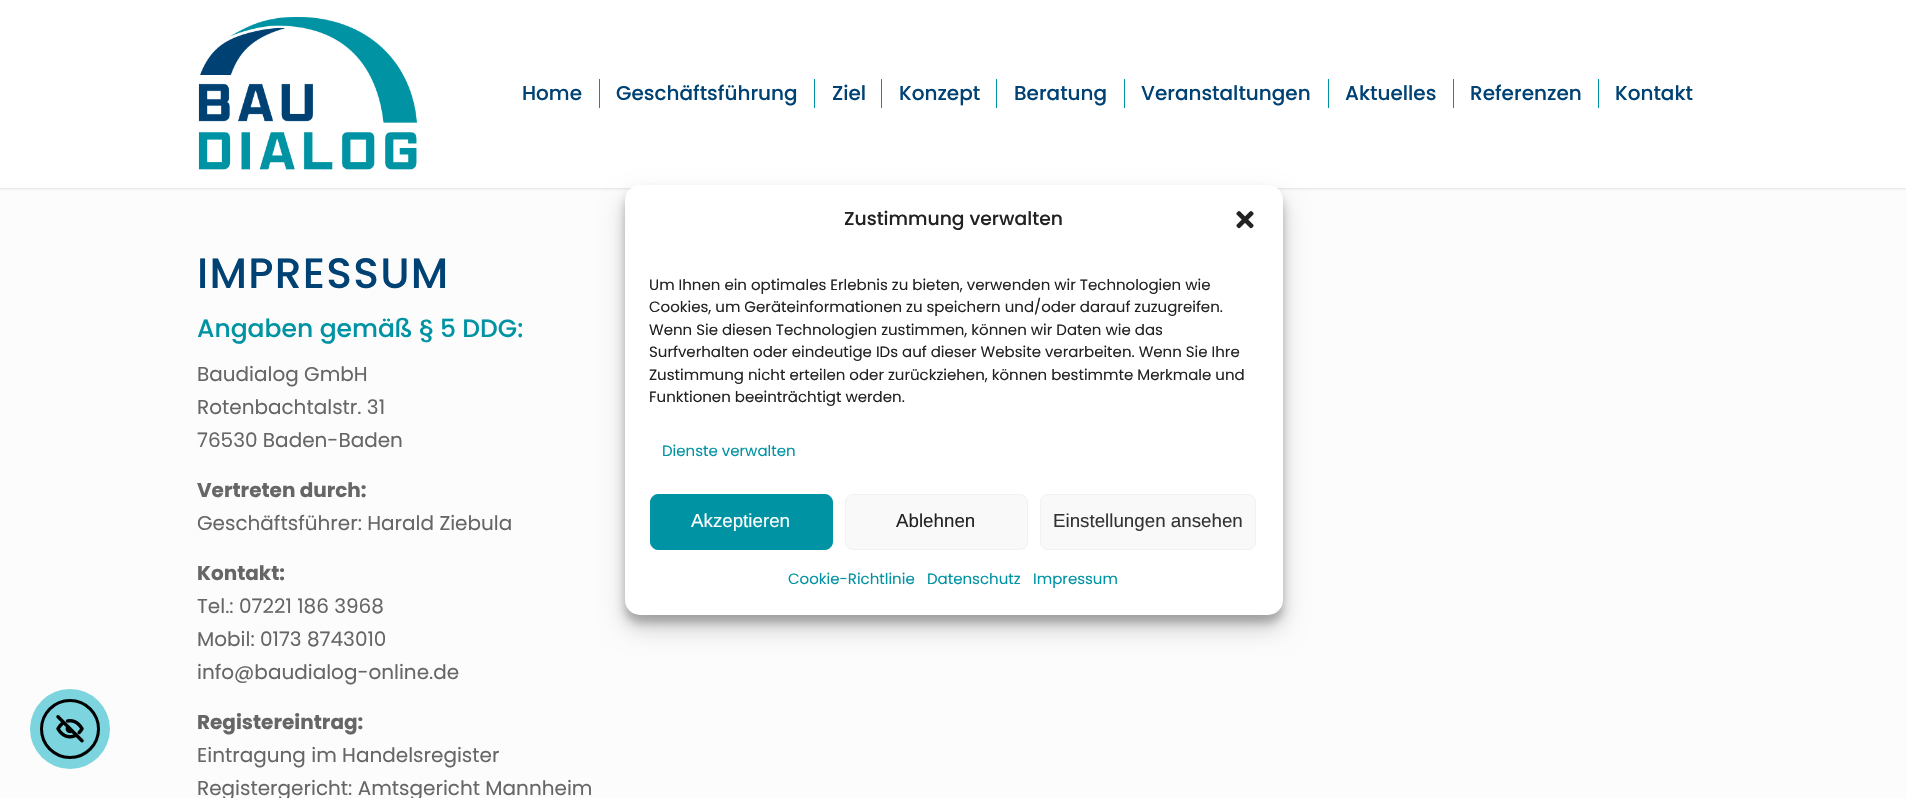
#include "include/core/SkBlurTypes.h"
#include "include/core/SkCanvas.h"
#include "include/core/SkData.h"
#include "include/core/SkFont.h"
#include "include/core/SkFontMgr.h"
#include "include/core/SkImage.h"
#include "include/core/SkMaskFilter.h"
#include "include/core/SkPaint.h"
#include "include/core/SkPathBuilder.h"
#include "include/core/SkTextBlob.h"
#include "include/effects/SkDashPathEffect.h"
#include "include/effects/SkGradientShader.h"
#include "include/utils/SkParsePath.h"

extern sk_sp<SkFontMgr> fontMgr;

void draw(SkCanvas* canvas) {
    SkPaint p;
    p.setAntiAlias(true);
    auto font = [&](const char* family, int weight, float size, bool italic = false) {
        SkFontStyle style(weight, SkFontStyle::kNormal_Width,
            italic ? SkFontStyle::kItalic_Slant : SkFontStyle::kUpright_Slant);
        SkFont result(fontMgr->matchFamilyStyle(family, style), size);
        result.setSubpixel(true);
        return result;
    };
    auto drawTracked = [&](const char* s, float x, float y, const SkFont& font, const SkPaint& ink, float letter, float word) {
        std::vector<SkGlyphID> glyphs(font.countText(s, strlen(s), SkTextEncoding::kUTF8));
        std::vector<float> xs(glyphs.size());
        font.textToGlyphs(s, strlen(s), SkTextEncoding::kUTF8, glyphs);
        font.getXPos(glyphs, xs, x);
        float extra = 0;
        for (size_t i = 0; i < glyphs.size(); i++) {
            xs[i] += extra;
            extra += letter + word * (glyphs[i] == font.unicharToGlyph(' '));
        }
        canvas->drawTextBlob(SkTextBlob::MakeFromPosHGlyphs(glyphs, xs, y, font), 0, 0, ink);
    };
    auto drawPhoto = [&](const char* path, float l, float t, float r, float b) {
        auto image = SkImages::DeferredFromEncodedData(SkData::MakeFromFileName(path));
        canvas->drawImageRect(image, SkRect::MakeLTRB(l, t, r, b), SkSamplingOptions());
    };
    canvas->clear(0xFFFCFCFC);
    p.setColor(0x1A000000);
    p.setMaskFilter(SkMaskFilter::MakeBlur(kNormal_SkBlurStyle, 1));
    canvas->drawRect(SkRect::MakeLTRB(-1, -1, 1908, 189), p);
    p.setMaskFilter(nullptr);
    p.setColor(0xFFFFFFFF);
    canvas->drawRect(SkRect::MakeLTRB(0, 0, 1906, 188), p);
    drawPhoto("media/1.png", 198, 17, 417, 170);
    auto font1 = font("Poppins", 500, 20);
    p.setColor(0xFF004274);
    canvas->drawString("Home", 522, 100, font1, p);
    canvas->drawString("Geschäftsführung", 616, 100, font1, p);
    p.setColor(0xFF0093A3);
    canvas->drawRect(SkRect::MakeLTRB(599, 79, 600, 108), p);
    p.setColor(0xFF004274);
    canvas->drawString("Ziel", 832, 100, font1, p);
    p.setColor(0xFF0093A3);
    canvas->drawRect(SkRect::MakeLTRB(814, 79, 815, 108), p);
    p.setColor(0xFF004274);
    canvas->drawString("Konzept", 899, 100, font1, p);
    p.setColor(0xFF0093A3);
    canvas->drawRect(SkRect::MakeLTRB(881, 79, 882, 108), p);
    p.setColor(0xFF004274);
    canvas->drawString("Beratung", 1014, 100, font1, p);
    p.setColor(0xFF0093A3);
    canvas->drawRect(SkRect::MakeLTRB(996, 79, 997, 108), p);
    p.setColor(0xFF004274);
    canvas->drawString("Veranstaltungen", 1141, 100, font1, p);
    p.setColor(0xFF0093A3);
    canvas->drawRect(SkRect::MakeLTRB(1124, 79, 1125, 108), p);
    p.setColor(0xFF004274);
    canvas->drawString("Aktuelles", 1345, 100, font1, p);
    p.setColor(0xFF0093A3);
    canvas->drawRect(SkRect::MakeLTRB(1328, 79, 1329, 108), p);
    p.setColor(0xFF004274);
    canvas->drawString("Referenzen", 1470, 100, font1, p);
    p.setColor(0xFF0093A3);
    canvas->drawRect(SkRect::MakeLTRB(1453, 79, 1454, 108), p);
    p.setColor(0xFF004274);
    canvas->drawString("Kontakt", 1615, 100, font1, p);
    p.setColor(0xFF0093A3);
    canvas->drawRect(SkRect::MakeLTRB(1598, 79, 1599, 108), p);
    auto font2 = font("Poppins", 500, 42.5f);
    p.setColor(0xFF004274);
    drawTracked("IMPRESSUM", 197, 288, font2, p, 1.25f, 0);
    auto font3 = font("Poppins", 500, 25);
    p.setColor(0xFF0093A3);
    canvas->drawString("Angaben gemäß § 5 DDG:", 197, 337, font3, p);
    auto font4 = font("Poppins", 400, 20);
    p.setColor(0xFF666666);
    {
        const struct { const char* s; float x, y; } items[] = {
            {"Baudialog GmbH", 197, 381},
            {"Rotenbachtalstr. 31", 197, 414},
            {"76530 Baden-Baden", 197, 447},
        };
        for (auto [s, x, y] : items) {
            canvas->drawString(s, x, y, font4, p);
        }
    }
    auto font5 = font("Poppins", 700, 20);
    canvas->drawString("Vertreten durch:", 197, 497, font5, p);
    canvas->drawString("Geschäftsführer: Harald Ziebula", 197, 530, font4, p);
    canvas->drawString("Kontakt:", 197, 580, font5, p);
    {
        const struct { const char* s; float x, y; } items[] = {
            {"Tel.: 07221 186 3968", 197, 613},
            {"Mobil: 0173 8743010", 197, 646},
            {"info@baudialog-online.de", 197, 679},
        };
        for (auto [s, x, y] : items) {
            canvas->drawString(s, x, y, font4, p);
        }
    }
    canvas->drawString("Registereintrag:", 197, 729, font5, p);
    canvas->drawString("Eintragung im Handelsregister", 197, 762, font4, p);
    canvas->drawString("Registergericht: Amtsgericht Mannheim", 197, 795, font4, p);
    p.setColor(0x3B000000);
    p.setMaskFilter(SkMaskFilter::MakeBlur(kNormal_SkBlurStyle, 4));
    canvas->drawRoundRect(SkRect::MakeLTRB(625, 193, 1283, 623), 15, 15, p);
    p.setMaskFilter(nullptr);
    p.setColor(0x30000000);
    p.setMaskFilter(SkMaskFilter::MakeBlur(kNormal_SkBlurStyle, 12.5f));
    canvas->drawRoundRect(SkRect::MakeLTRB(625, 198, 1283, 628), 15, 15, p);
    p.setMaskFilter(nullptr);
    p.setColor(0xFFFFFFFF);
    canvas->drawRoundRect(SkRect::MakeLTRB(625, 185, 1283, 615), 15, 15, p);
    auto font6 = font("Poppins", 500, 18.75f);
    p.setColor(0xFF222222);
    canvas->drawString("Zustimmung verwalten", 844, 225, font6, p);
    drawPhoto("media/2.png", 1236, 211, 1254, 229);
    auto font7 = font("Poppins", 400, 15);
    {
        const struct { const char* s; float x, y; } items[] = {
            {"Um Ihnen ein optimales Erlebnis zu bieten, verwenden wir Technologien wie", 649, 290},
            {"Cookies, um Geräteinformationen zu speichern und/oder darauf zuzugreifen.", 649, 312},
            {"Wenn Sie diesen Technologien zustimmen, können wir Daten wie das", 649, 335},
            {"Surfverhalten oder eindeutige IDs auf dieser Website verarbeiten. Wenn Sie Ihre", 649, 357},
            {"Zustimmung nicht erteilen oder zurückziehen, können bestimmte Merkmale und", 649, 380},
            {"Funktionen beeinträchtigt werden.", 649, 402},
        };
        for (auto [s, x, y] : items) {
            canvas->drawString(s, x, y, font7, p);
        }
    }
    p.setColor(0xFF0093A3);
    canvas->drawString("Dienste verwalten", 662, 456, font7, p);
    canvas->drawRoundRect(SkRect::MakeLTRB(650.5f, 494.5f, 832.5f, 549.5f), 7.5f, 7.5f, p);
    p.setStyle(SkPaint::kStroke_Style);
    p.setStrokeWidth(1);
    canvas->drawRoundRect(SkRect::MakeLTRB(650.5f, 494.5f, 832.5f, 549.5f), 7.5f, 7.5f, p);
    auto font8 = font("Liberation Sans", 400, 18.75f);
    p.setStyle(SkPaint::kFill_Style);
    p.setColor(0xFFFFFFFF);
    canvas->drawString("Akzeptieren", 691, 527, font8, p);
    p.setColor(0xFFF9F9F9);
    canvas->drawRoundRect(SkRect::MakeLTRB(845.5f, 494.5f, 1027.5f, 549.5f), 7.5f, 7.5f, p);
    p.setStyle(SkPaint::kStroke_Style);
    p.setColor(0xFFF2F2F2);
    canvas->drawRoundRect(SkRect::MakeLTRB(845.5f, 494.5f, 1027.5f, 549.5f), 7.5f, 7.5f, p);
    p.setStyle(SkPaint::kFill_Style);
    p.setColor(0xFF222222);
    canvas->drawString("Ablehnen", 896, 527, font8, p);
    p.setColor(0xFFF9F9F9);
    canvas->drawRoundRect(SkRect::MakeLTRB(1040.5f, 494.5f, 1255.5f, 549.5f), 7.5f, 7.5f, p);
    p.setStyle(SkPaint::kStroke_Style);
    p.setColor(0xFFF2F2F2);
    canvas->drawRoundRect(SkRect::MakeLTRB(1040.5f, 494.5f, 1255.5f, 549.5f), 7.5f, 7.5f, p);
    p.setStyle(SkPaint::kFill_Style);
    p.setColor(0xFF333333);
    canvas->drawString("Einstellungen ansehen", 1053, 527, font8, p);
    p.setColor(0xFF0093A3);
    {
        const struct { const char* s; float x, y; } items[] = {
            {"Cookie-Richtlinie", 788, 584},
            {"Datenschutz", 927, 584},
            {"Impressum", 1033, 584},
        };
        for (auto [s, x, y] : items) {
            canvas->drawString(s, x, y, font7, p);
        }
    }
    p.setColor(0xFF7BD4DE);
    canvas->drawCircle(70, 729, 40, p);
    p.setStyle(SkPaint::kStroke_Style);
    p.setStrokeWidth(3);
    p.setColor(0xFF000000);
    canvas->drawCircle(70, 729, 28.5f, p);
    drawPhoto("media/3.png", 56, 715, 84, 743);
}
